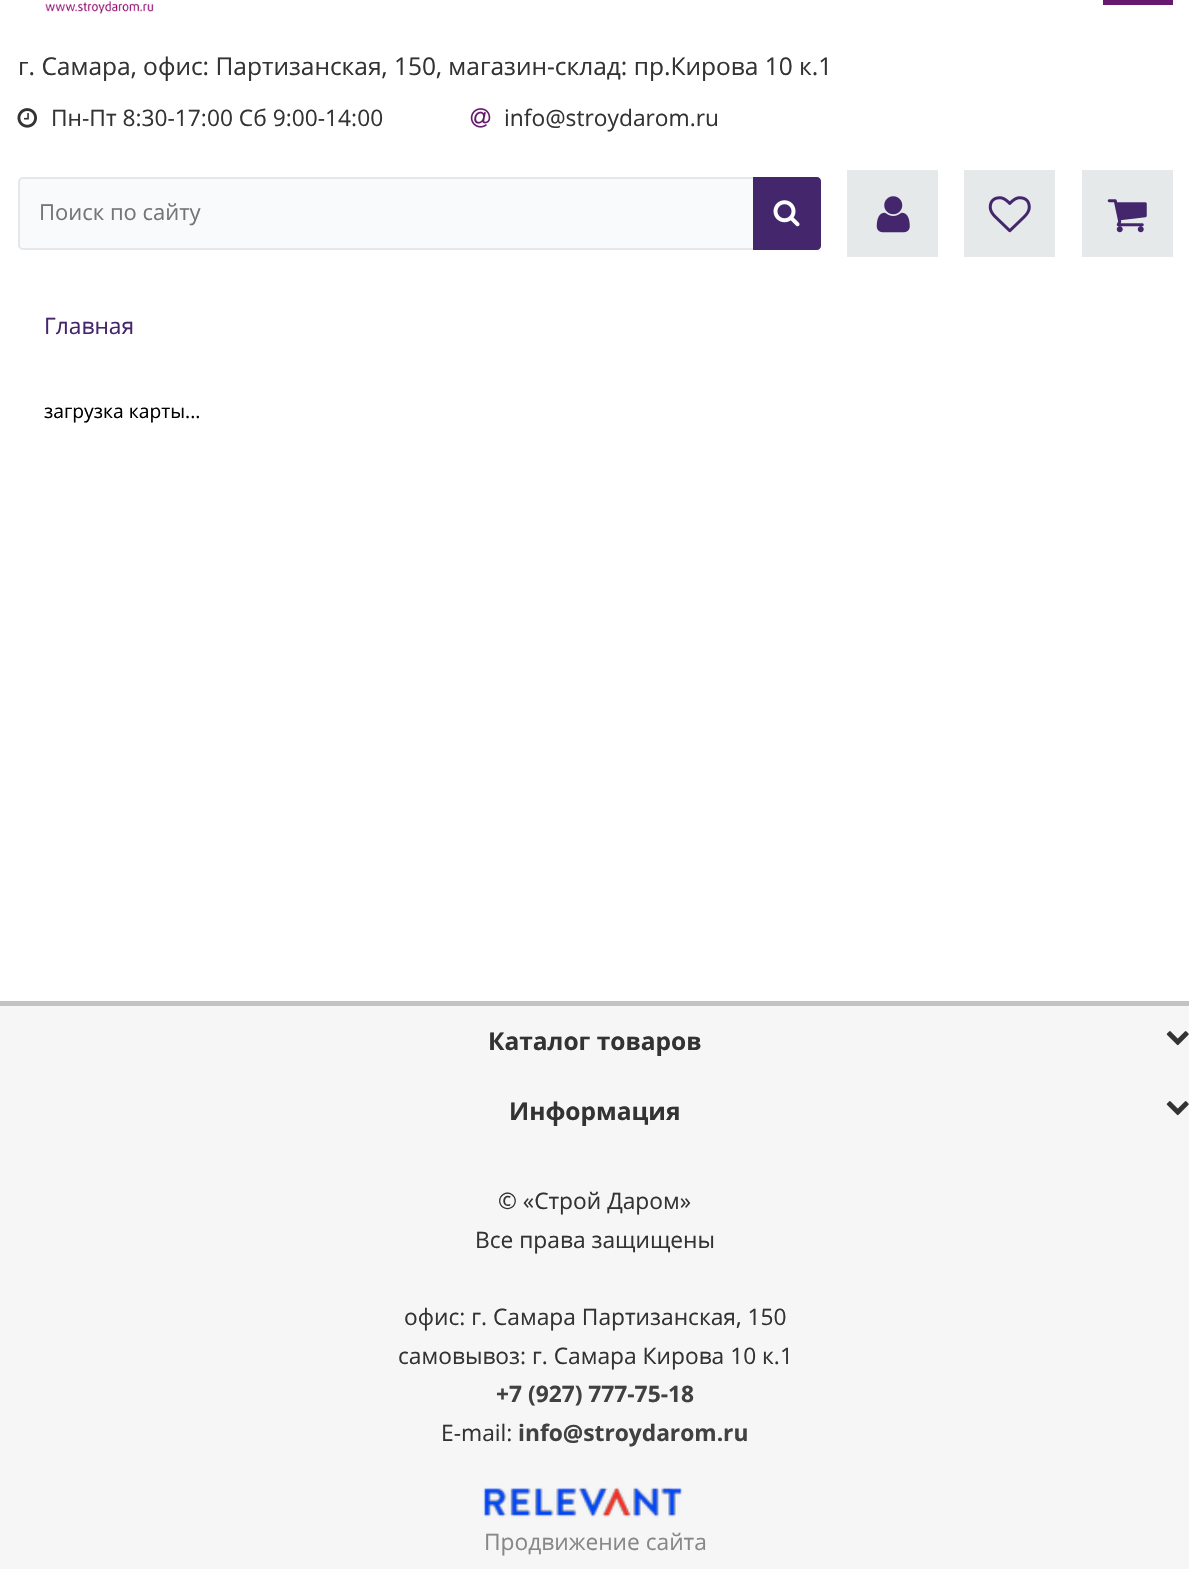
#include "include/core/SkBlurTypes.h"
#include "include/core/SkCanvas.h"
#include "include/core/SkData.h"
#include "include/core/SkFont.h"
#include "include/core/SkFontMgr.h"
#include "include/core/SkImage.h"
#include "include/core/SkMaskFilter.h"
#include "include/core/SkPaint.h"
#include "include/core/SkPathBuilder.h"
#include "include/core/SkTextBlob.h"
#include "include/effects/SkDashPathEffect.h"
#include "include/effects/SkGradientShader.h"
#include "include/utils/SkParsePath.h"

extern sk_sp<SkFontMgr> fontMgr;

void draw(SkCanvas* canvas) {
    SkPaint p;
    p.setAntiAlias(true);
    auto font = [&](const char* family, int weight, float size, bool italic = false) {
        SkFontStyle style(weight, SkFontStyle::kNormal_Width,
            italic ? SkFontStyle::kItalic_Slant : SkFontStyle::kUpright_Slant);
        SkFont result(fontMgr->matchFamilyStyle(family, style), size);
        result.setSubpixel(true);
        return result;
    };
    auto drawPhoto = [&](const char* path, float l, float t, float r, float b) {
        auto image = SkImages::DeferredFromEncodedData(SkData::MakeFromFileName(path));
        canvas->drawImageRect(image, SkRect::MakeLTRB(l, t, r, b), SkSamplingOptions());
    };
    canvas->clear(0xFFFFFFFF);
    drawPhoto("media/1.png", 45, 0, 154, 14);
    p.setColor(0xFF66196E);
    canvas->drawRect(SkRect::MakeLTRB(1103, 0, 1173, 5), p);
    auto font1 = font("Open Sans", 400, 24.5f);
    p.setColor(0xFF333333);
    canvas->drawString("г. Самара, офис: Партизанская, 150, магазин-склад: пр.Кирова 10 к.1", 18, 75, font1, p);
    drawPhoto("media/2.png", 17, 108, 37, 128);
    auto font2 = font("Open Sans", 400, 22.75f);
    canvas->drawString("Пн-Пт 8:30-17:00 Сб 9:00-14:00", 51, 126, font2, p);
    drawPhoto("media/3.png", 470, 108, 491, 128);
    canvas->drawString("info@stroydarom.ru", 504, 126, font2, p);
    p.setColor(0xFFF8FAFC);
    canvas->drawRoundRect(SkRect::MakeLTRB(19, 178, 820, 249), 4, 4, p);
    p.setStyle(SkPaint::kStroke_Style);
    p.setStrokeWidth(2);
    p.setColor(0xFFE7E7E7);
    canvas->drawRoundRect(SkRect::MakeLTRB(19, 178, 820, 249), 4, 4, p);
    auto font3 = font("Open Sans", 400, 22);
    p.setStyle(SkPaint::kFill_Style);
    p.setColor(0xFF757575);
    canvas->drawString("Поиск по сайту", 39, 220, font3, p);
    p.setColor(0xFF43266B);
    canvas->drawPath(SkPathBuilder().moveTo(753, 177).lineTo(817, 177).cubicTo(819, 177, 821, 179, 821, 181).lineTo(821, 246).cubicTo(821, 248, 819, 250, 817, 250).lineTo(753, 250).close().detach(), p);
    drawPhoto("media/4.png", 773, 200, 800, 227);
    p.setColor(0xFFE5E9EA);
    canvas->drawRect(SkRect::MakeLTRB(847, 170, 938, 257), p);
    drawPhoto("media/5.png", 876, 196, 910, 233);
    canvas->drawRect(SkRect::MakeLTRB(964, 170, 1055, 257), p);
    drawPhoto("media/6.png", 988, 196, 1031, 233);
    canvas->drawRect(SkRect::MakeLTRB(1082, 170, 1173, 257), p);
    drawPhoto("media/7.png", 1107, 199, 1147, 233);
    p.setColor(0xFF43266B);
    canvas->drawString("Главная", 44, 334, font2, p);
    auto font4 = font("Open Sans", 400, 19.25f);
    p.setColor(0xFF000000);
    canvas->drawString("загрузка карты...", 44, 418, font4, p);
    p.setColor(0xFFF6F6F7);
    canvas->drawRect(SkRect::MakeLTRB(0, 1006, 1189, 1569), p);
    p.setColor(0xFFC3C3C3);
    canvas->drawRect(SkRect::MakeLTRB(0, 1001, 1189, 1006), p);
    auto font5 = font("Open Sans", 700, 24.5f);
    p.setColor(0xFF333333);
    canvas->drawString("Каталог товаров", 488, 1050, font5, p);
    drawPhoto("media/8.png", 1166, 1031, 1189, 1046);
    canvas->drawString("Информация", 509, 1120, font5, p);
    drawPhoto("media/8.png", 1166, 1101, 1189, 1116);
    {
        const struct { const char* s; float x, y; } items[] = {
            {"© «Строй Даром»", 498, 1209},
            {"Все права защищены", 475, 1248},
            {"офис: г. Самара Партизанская, 150", 404, 1325},
            {"самовывоз: г. Самара Кирова 10 к.1", 398, 1364},
        };
        for (auto [s, x, y] : items) {
            canvas->drawString(s, x, y, font2, p);
        }
    }
    auto font6 = font("Open Sans", 700, 22.75f);
    p.setColor(0xFF414141);
    canvas->drawString("+7 (927) 777-75-18", 496, 1402, font6, p);
    p.setColor(0xFF333333);
    canvas->drawString("E-mail:", 441, 1441, font2, p);
    p.setColor(0xFF414141);
    canvas->drawString("info@stroydarom.ru", 518, 1441, font6, p);
    drawPhoto("media/9.png", 483, 1487, 683, 1518);
    p.setColor(0xFF888888);
    canvas->drawString("Продвижение сайта", 484, 1550, font2, p);
}
